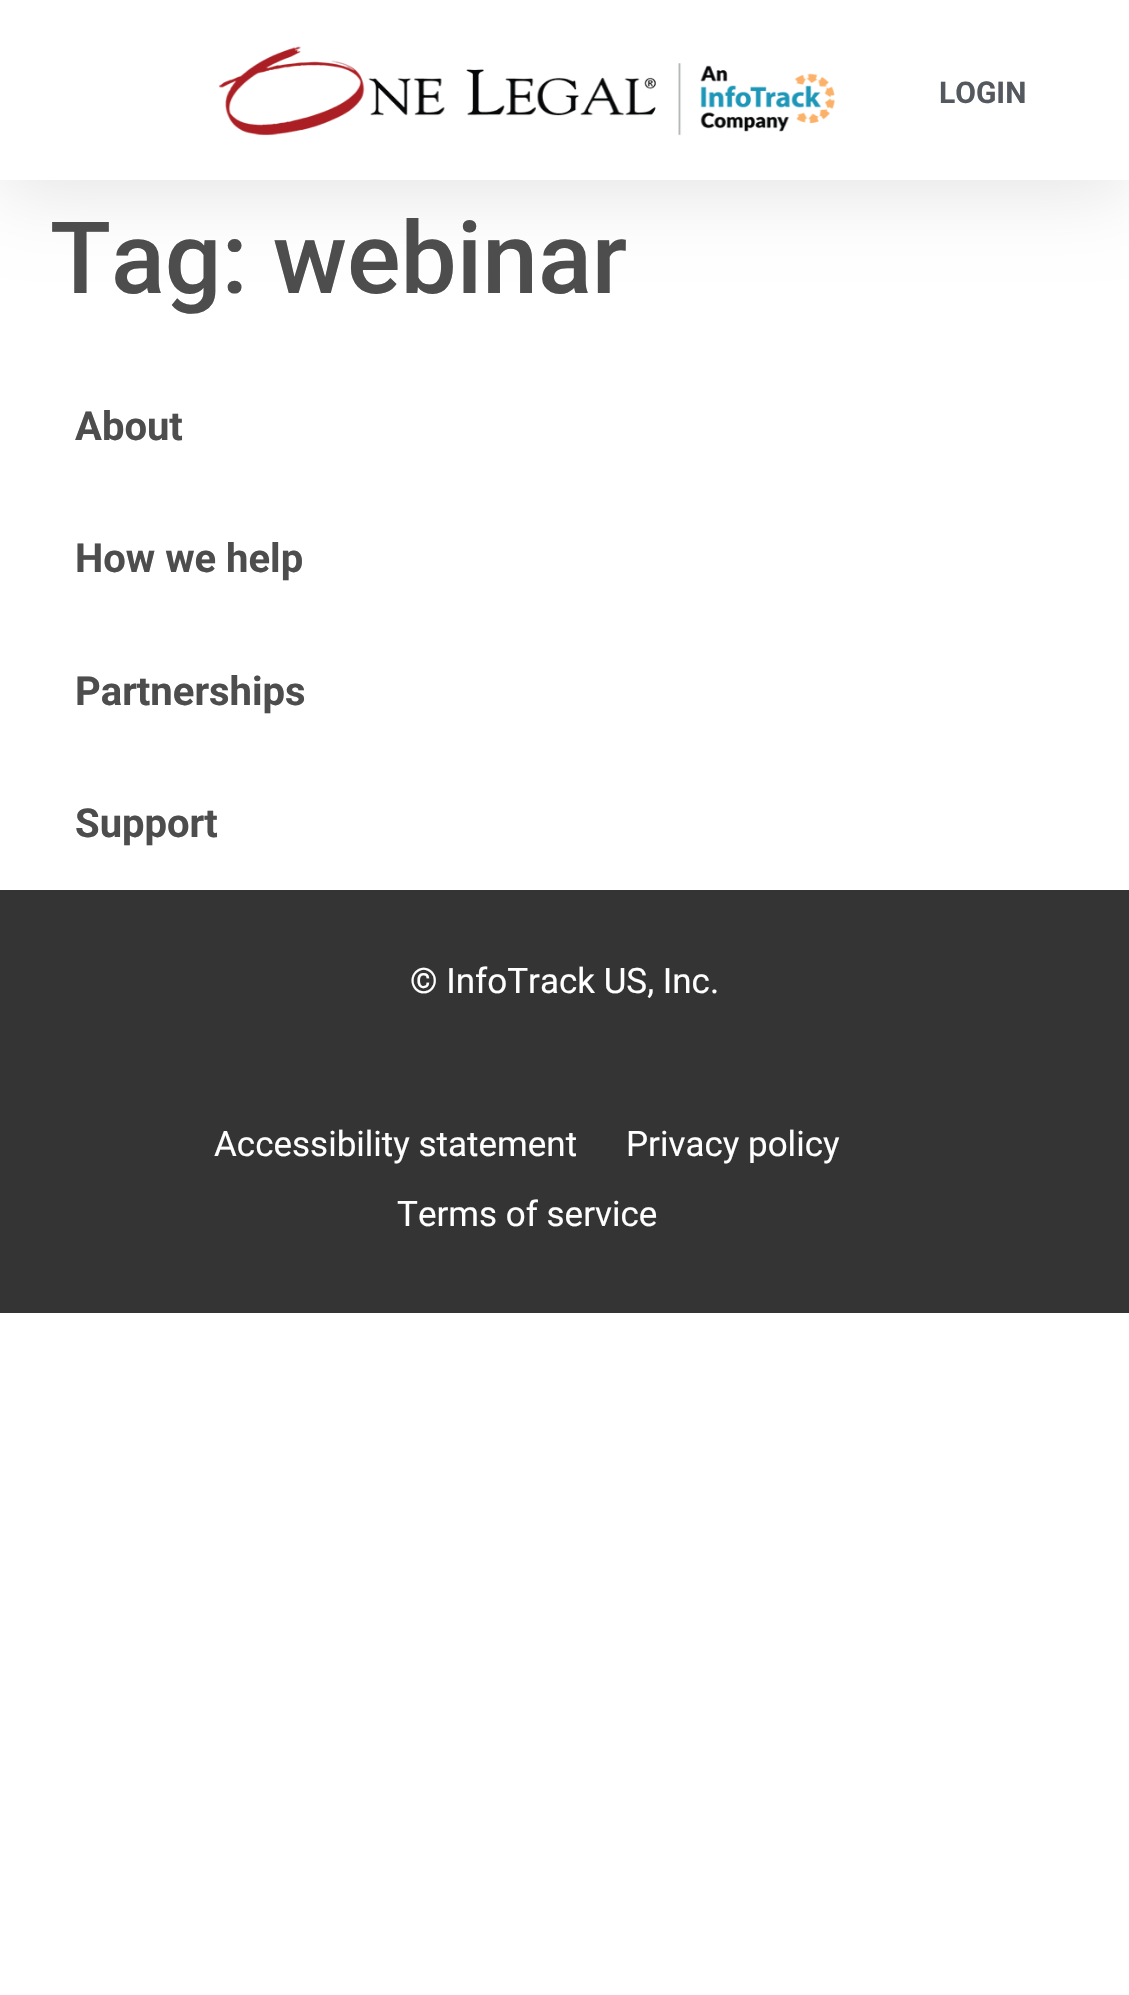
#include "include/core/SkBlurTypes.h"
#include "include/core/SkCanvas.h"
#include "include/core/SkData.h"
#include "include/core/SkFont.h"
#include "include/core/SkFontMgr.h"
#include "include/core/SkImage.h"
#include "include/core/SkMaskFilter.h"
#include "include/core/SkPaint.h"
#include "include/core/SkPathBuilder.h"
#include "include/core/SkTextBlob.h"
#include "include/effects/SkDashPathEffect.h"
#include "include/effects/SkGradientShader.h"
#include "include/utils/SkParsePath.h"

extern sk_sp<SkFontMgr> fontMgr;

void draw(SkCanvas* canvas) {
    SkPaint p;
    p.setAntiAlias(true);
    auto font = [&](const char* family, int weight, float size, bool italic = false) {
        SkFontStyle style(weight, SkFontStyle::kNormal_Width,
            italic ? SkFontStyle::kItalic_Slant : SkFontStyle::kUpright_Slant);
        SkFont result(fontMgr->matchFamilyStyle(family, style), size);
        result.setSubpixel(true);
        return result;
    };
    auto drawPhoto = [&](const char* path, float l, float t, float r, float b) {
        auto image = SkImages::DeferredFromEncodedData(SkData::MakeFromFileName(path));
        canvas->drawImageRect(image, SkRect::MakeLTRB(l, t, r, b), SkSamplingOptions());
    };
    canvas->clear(0xFFFFFFFF);
    p.setColor(0x1A000000);
    p.setMaskFilter(SkMaskFilter::MakeBlur(kNormal_SkBlurStyle, 37.5f));
    canvas->drawRect(SkRect::MakeLTRB(0, 13, 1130, 193), p);
    p.setMaskFilter(nullptr);
    p.setColor(0xFFFFFFFF);
    canvas->drawRect(SkRect::MakeLTRB(0, 0, 1129, 180), p);
    drawPhoto("media/1.png", 218, 46, 835, 136);
    auto font1 = font("Roboto", 700, 30);
    p.setColor(0xFF54595F);
    canvas->drawString("LOGIN", 939, 103, font1, p);
    auto font2 = font("Roboto", 500, 100);
    p.setColor(0xFF4D4D4D);
    canvas->drawString("Tag: webinar", 50, 293, font2, p);
    auto font3 = font("Roboto", 700, 40);
    {
        const struct { const char* s; float x, y; } items[] = {
            {"About", 75, 440},
            {"How we help", 75, 572},
            {"Partnerships", 75, 705},
            {"Support", 75, 837},
        };
        for (auto [s, x, y] : items) {
            canvas->drawString(s, x, y, font3, p);
        }
    }
    p.setColor(0xFF343434);
    canvas->drawRect(SkRect::MakeLTRB(0, 890, 1129, 1313), p);
    auto font4 = font("Roboto", 400, 35);
    p.setColor(0xFFFFFFFF);
    {
        const struct { const char* s; float x, y; } items[] = {
            {"© InfoTrack US, Inc.", 410, 993},
            {"Accessibility statement", 214, 1156},
            {"Privacy policy", 626, 1156},
            {"Terms of service", 397, 1226},
        };
        for (auto [s, x, y] : items) {
            canvas->drawString(s, x, y, font4, p);
        }
    }
}
